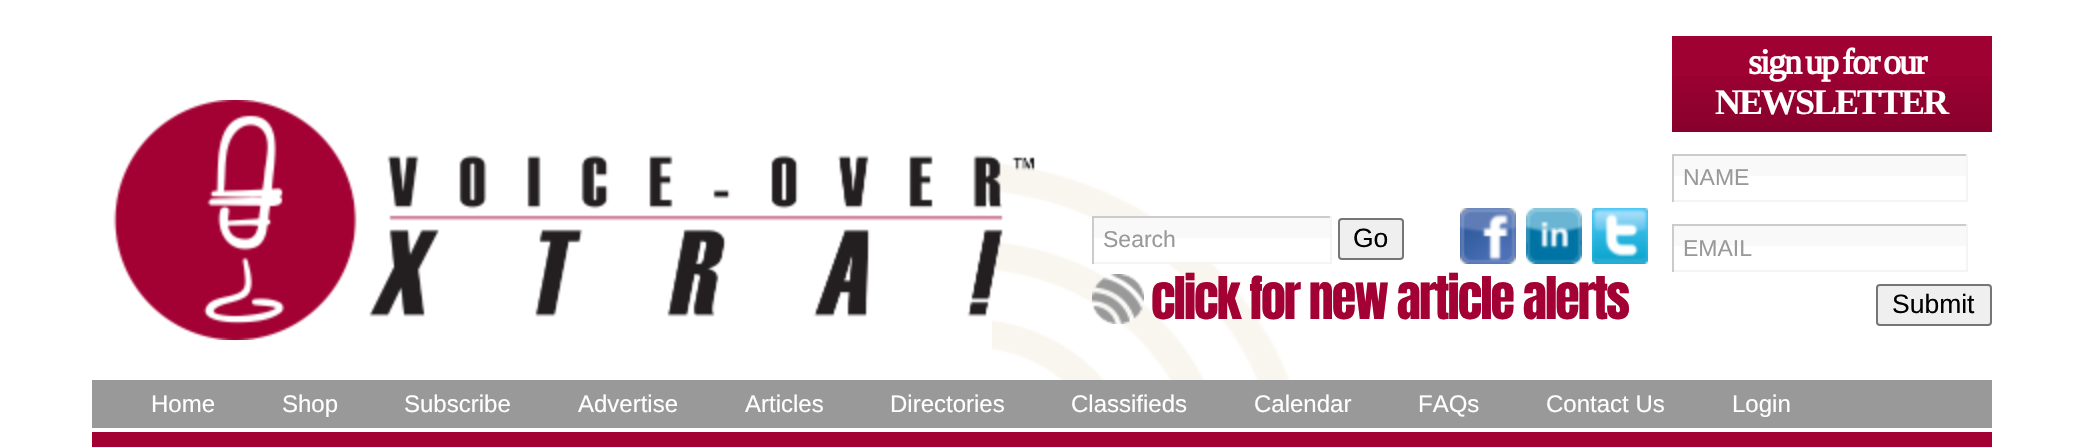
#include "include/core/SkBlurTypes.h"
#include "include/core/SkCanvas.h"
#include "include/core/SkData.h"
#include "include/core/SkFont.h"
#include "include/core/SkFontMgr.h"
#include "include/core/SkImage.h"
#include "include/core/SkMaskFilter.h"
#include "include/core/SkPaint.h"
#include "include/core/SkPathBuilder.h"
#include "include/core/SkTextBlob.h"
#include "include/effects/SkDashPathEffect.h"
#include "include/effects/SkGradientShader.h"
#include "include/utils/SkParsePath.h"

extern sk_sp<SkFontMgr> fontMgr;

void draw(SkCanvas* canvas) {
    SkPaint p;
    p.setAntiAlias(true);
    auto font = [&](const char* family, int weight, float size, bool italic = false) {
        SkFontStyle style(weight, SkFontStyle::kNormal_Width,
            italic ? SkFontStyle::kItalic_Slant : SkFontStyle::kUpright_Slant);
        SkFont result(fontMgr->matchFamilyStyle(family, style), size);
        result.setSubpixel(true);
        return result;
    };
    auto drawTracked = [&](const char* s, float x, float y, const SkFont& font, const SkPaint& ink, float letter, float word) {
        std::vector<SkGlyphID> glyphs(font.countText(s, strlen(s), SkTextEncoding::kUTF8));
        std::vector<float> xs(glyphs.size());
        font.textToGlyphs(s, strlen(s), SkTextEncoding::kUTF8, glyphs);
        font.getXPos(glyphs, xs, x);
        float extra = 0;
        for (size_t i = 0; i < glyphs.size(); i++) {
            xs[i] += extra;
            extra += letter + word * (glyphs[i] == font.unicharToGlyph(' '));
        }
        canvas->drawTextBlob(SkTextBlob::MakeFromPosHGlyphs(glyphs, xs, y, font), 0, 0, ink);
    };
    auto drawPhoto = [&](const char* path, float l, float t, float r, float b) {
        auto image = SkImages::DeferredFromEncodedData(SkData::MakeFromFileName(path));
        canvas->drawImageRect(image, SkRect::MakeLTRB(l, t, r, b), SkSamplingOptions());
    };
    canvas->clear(0xFFFFFFFF);
    drawPhoto("media/1.png", 992, 162, 1290, 380);
    drawPhoto("media/2.png", 113, 100, 1035, 340);
    {
        const struct { float l, t, r, b; SkColor color; } items[] = {
            {1131, 238, 1211, 262, 0xFFFFFFFF},
            {1094, 218, 1330, 238, 0xFFF9F9F9},
            {1092, 216, 1332, 218, 0xFFCBCBCB},
            {1330, 216, 1332, 264, 0xFFF4F4F4},
            {1092, 262, 1332, 264, 0xFFF4F4F4},
            {1092, 216, 1094, 264, 0xFFCBCBCB},
        };
        for (auto [l, t, r, b, color] : items) {
            p.setColor(color);
            canvas->drawRect(SkRect::MakeLTRB(l, t, r, b), p);
        }
    }
    auto font1 = font("Liberation Sans", 400, 23);
    p.setColor(0xFF999999);
    canvas->drawString("Search", 1103, 247, font1, p);
    p.setColor(0xFFEFEFEF);
    canvas->drawRoundRect(SkRect::MakeLTRB(1339, 219, 1403, 259), 3, 3, p);
    p.setStyle(SkPaint::kStroke_Style);
    p.setStrokeWidth(2);
    p.setColor(0xFF767676);
    canvas->drawRoundRect(SkRect::MakeLTRB(1339, 219, 1403, 259), 3, 3, p);
    auto font2 = font("Liberation Sans", 400, 26.5f);
    p.setStyle(SkPaint::kFill_Style);
    p.setColor(0xFF000000);
    canvas->drawString("Go", 1353, 247, font2, p);
    drawPhoto("media/3.png", 1460, 208, 1516, 264);
    drawPhoto("media/4.png", 1526, 208, 1582, 264);
    drawPhoto("media/5.png", 1592, 208, 1648, 264);
    drawPhoto("media/6.png", 1092, 274, 1144, 324);
    auto font3 = font("Anton", 400, 50);
    p.setColor(0xFFA30133);
    drawTracked("click for new article alerts", 1151, 319, font3, p, -2, 0);
    p.setColor(0xFF9F0132);
    canvas->drawRect(SkRect::MakeLTRB(1672, 36, 1992, 76), p);
    drawPhoto("media/7.png", 1672, 76, 1992, 132);
    auto font4 = font("Liberation Serif", 700, 36);
    p.setColor(0xFFFFFFFF);
    drawTracked("sign up for our", 1748, 74, font4, p, -2, -2);
    auto font5 = font("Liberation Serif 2", 700, 36);
    drawTracked("NEWSLETTER", 1715, 114, font5, p, -2, 0);
    {
        const struct { float l, t, r, b; SkColor color; } items[] = {
            {1674, 156, 1966, 176, 0xFFF9F9F9},
            {1672, 154, 1968, 156, 0xFFCBCBCB},
            {1966, 154, 1968, 202, 0xFFF4F4F4},
            {1672, 200, 1968, 202, 0xFFF4F4F4},
            {1672, 154, 1674, 202, 0xFFCBCBCB},
        };
        for (auto [l, t, r, b, color] : items) {
            p.setColor(color);
            canvas->drawRect(SkRect::MakeLTRB(l, t, r, b), p);
        }
    }
    p.setColor(0xFF999999);
    canvas->drawString("NAME", 1683, 185, font1, p);
    {
        const struct { float l, t, r, b; SkColor color; } items[] = {
            {1674, 226, 1966, 246, 0xFFF9F9F9},
            {1672, 224, 1968, 226, 0xFFCBCBCB},
            {1966, 224, 1968, 272, 0xFFF4F4F4},
            {1672, 270, 1968, 272, 0xFFF4F4F4},
            {1672, 224, 1674, 272, 0xFFCBCBCB},
        };
        for (auto [l, t, r, b, color] : items) {
            p.setColor(color);
            canvas->drawRect(SkRect::MakeLTRB(l, t, r, b), p);
        }
    }
    p.setColor(0xFF999999);
    canvas->drawString("EMAIL", 1683, 256, font1, p);
    p.setColor(0xFFEFEFEF);
    canvas->drawRoundRect(SkRect::MakeLTRB(1877, 285, 1991, 325), 3, 3, p);
    p.setStyle(SkPaint::kStroke_Style);
    p.setColor(0xFF767676);
    canvas->drawRoundRect(SkRect::MakeLTRB(1877, 285, 1991, 325), 3, 3, p);
    p.setStyle(SkPaint::kFill_Style);
    p.setColor(0xFF000000);
    canvas->drawString("Submit", 1892, 313, font2, p);
    p.setColor(0xFF999999);
    canvas->drawRect(SkRect::MakeLTRB(92, 380, 1992, 428), p);
    auto font6 = font("Liberation Sans", 400, 24);
    p.setColor(0xFFFFFFFF);
    {
        const struct { const char* s; float x, y; } items[] = {
            {"Home", 151, 412},
            {"Shop", 282, 412},
            {"Subscribe", 404, 412},
            {"Advertise", 578, 412},
            {"Articles", 745, 412},
            {"Directories", 890, 412},
            {"Classifieds", 1071, 412},
            {"Calendar", 1254, 412},
            {"FAQs", 1418, 412},
            {"Contact Us", 1546, 412},
            {"Login", 1732, 412},
        };
        for (auto [s, x, y] : items) {
            canvas->drawString(s, x, y, font6, p);
        }
    }
    p.setColor(0xFFA30133);
    canvas->drawRect(SkRect::MakeLTRB(92, 432, 1992, 447), p);
}
